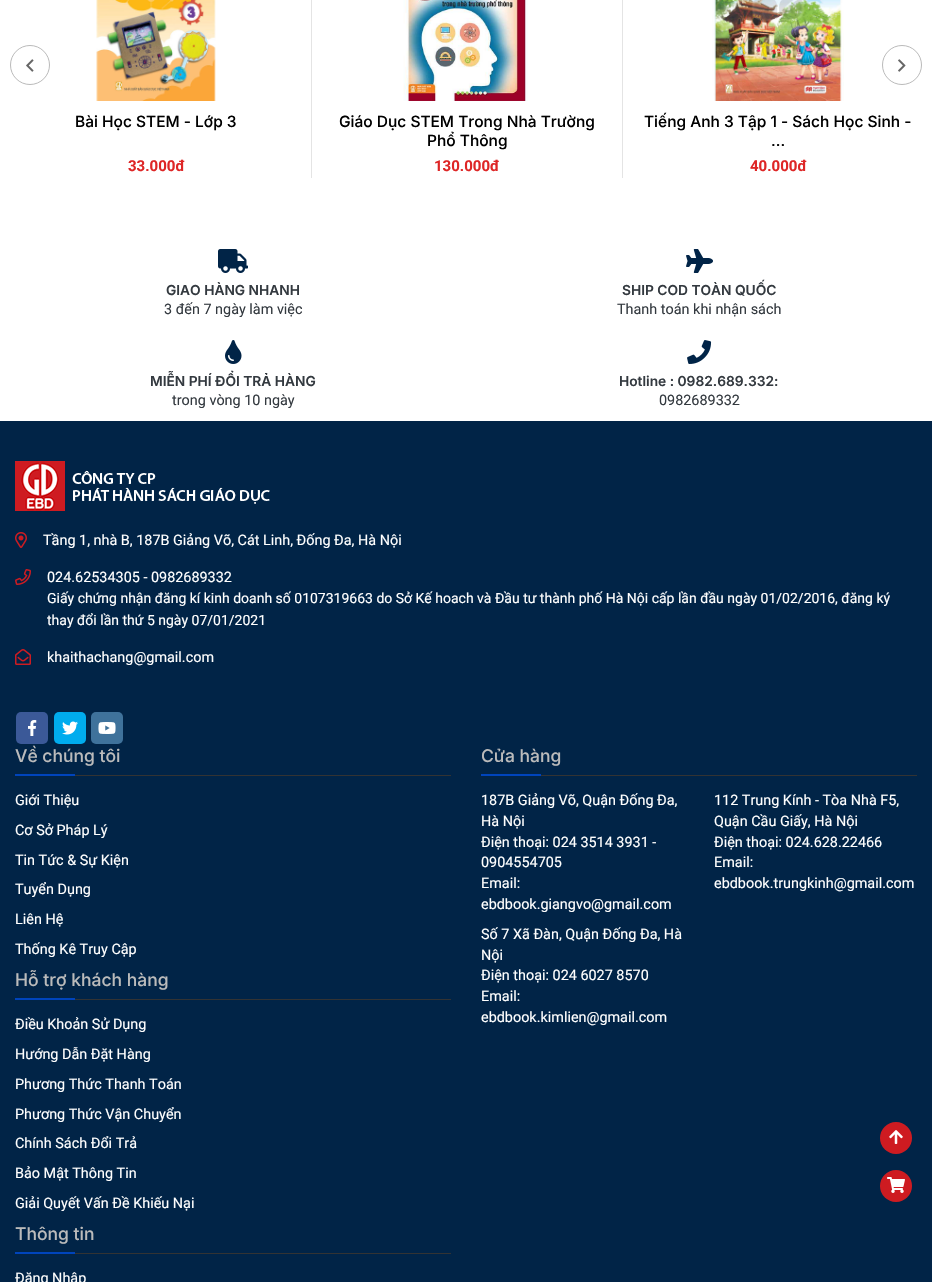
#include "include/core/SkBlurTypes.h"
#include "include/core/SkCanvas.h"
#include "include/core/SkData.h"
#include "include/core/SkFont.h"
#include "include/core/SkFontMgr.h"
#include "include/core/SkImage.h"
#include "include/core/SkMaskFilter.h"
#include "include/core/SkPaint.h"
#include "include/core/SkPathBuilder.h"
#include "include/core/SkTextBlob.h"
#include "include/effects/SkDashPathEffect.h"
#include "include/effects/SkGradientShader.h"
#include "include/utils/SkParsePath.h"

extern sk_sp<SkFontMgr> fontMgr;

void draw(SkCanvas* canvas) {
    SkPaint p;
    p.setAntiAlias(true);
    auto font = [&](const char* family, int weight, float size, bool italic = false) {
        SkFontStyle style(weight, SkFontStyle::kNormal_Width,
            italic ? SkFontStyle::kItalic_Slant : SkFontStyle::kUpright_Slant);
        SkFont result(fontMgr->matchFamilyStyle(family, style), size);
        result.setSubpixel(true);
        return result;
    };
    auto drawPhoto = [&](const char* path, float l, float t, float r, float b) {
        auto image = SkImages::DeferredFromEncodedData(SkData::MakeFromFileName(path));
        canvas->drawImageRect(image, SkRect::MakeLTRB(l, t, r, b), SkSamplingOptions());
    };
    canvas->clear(0xFFFFFFFF);
    p.setStyle(SkPaint::kStroke_Style);
    p.setStrokeWidth(1);
    p.setColor(0xFFBABABA);
    canvas->drawCircle(30, 65, 19.5f, p);
    drawPhoto("media/1.png", 26, 59, 34, 72);
    canvas->drawCircle(902, 65, 19.5f, p);
    drawPhoto("media/2.png", 898, 59, 906, 72);
    p.setStyle(SkPaint::kFill_Style);
    p.setColor(0xFFE4E4E4);
    canvas->drawRect(SkRect::MakeLTRB(311, 0, 312, 178), p);
    drawPhoto("media/3.png", 96, 0, 216, 101);
    auto font1 = font("Inter", 500, 15.5f);
    p.setColor(0xFF000000);
    canvas->drawString("Bài Học STEM - Lớp 3", 75, 127, font1, p);
    auto font2 = font("Roboto", 700, 15);
    p.setColor(0xFFDE2626);
    canvas->drawString("33.000đ", 128, 171, font2, p);
    p.setColor(0xFFE4E4E4);
    canvas->drawRect(SkRect::MakeLTRB(622, 0, 623, 178), p);
    drawPhoto("media/4.png", 403, 0, 528, 101);
    p.setColor(0xFF000000);
    canvas->drawString("Giáo Dục STEM Trong Nhà Trường", 339, 127, font1, p);
    canvas->drawString("Phổ Thông", 427, 146, font1, p);
    p.setColor(0xFFDE2626);
    canvas->drawString("130.000đ", 434, 171, font2, p);
    drawPhoto("media/5.png", 712, 0, 844, 101);
    p.setColor(0xFF000000);
    canvas->drawString("Tiếng Anh 3 Tập 1 - Sách Học Sinh -", 644, 127, font1, p);
    canvas->drawString("...", 771, 146, font1, p);
    p.setColor(0xFFDE2626);
    canvas->drawString("40.000đ", 750, 171, font2, p);
    drawPhoto("media/6.png", 218, 249, 248, 273);
    auto font3 = font("Inter", 600, 13.75f);
    p.setColor(0xFF343A40);
    canvas->drawString("GIAO HÀNG NHANH", 166, 295, font3, p);
    auto font4 = font("Roboto", 400, 14.4f);
    canvas->drawString("3 đến 7 ngày làm việc", 164, 314, font4, p);
    drawPhoto("media/7.png", 686, 249, 713, 273);
    canvas->drawString("SHIP COD TOÀN QUỐC", 622, 295, font3, p);
    canvas->drawString("Thanh toán khi nhận sách", 617, 314, font4, p);
    drawPhoto("media/8.png", 225, 340, 242, 364);
    canvas->drawString("MIỄN PHÍ ĐỔI TRẢ HÀNG", 150, 386, font3, p);
    canvas->drawString("trong vòng 10 ngày", 172, 405, font4, p);
    drawPhoto("media/9.png", 687, 340, 712, 364);
    canvas->drawString("Hotline : 0982.689.332:", 619, 386, font3, p);
    canvas->drawString("0982689332", 659, 405, font4, p);
    p.setColor(0xFF012447);
    canvas->drawRect(SkRect::MakeLTRB(0, 421, 932, 1282), p);
    drawPhoto("media/10.png", 15, 461, 270, 511);
    drawPhoto("media/11.png", 15, 532, 27, 548);
    p.setColor(0xFFFFFFFF);
    canvas->drawString("Tầng 1, nhà B, 187B Giảng Võ, Cát Linh, Đống Đa, Hà Nội", 43, 545, font4, p);
    drawPhoto("media/12.png", 15, 569, 31, 585);
    canvas->drawString("024.62534305 - 0982689332", 47, 582, font4, p);
    auto font5 = font("Roboto", 400, 14);
    canvas->drawString("Giấy chứng nhận đăng kí kinh doanh số 0107319663 do Sở Kế hoach và Đầu tư thành phố Hà Nội cấp lần đầu ngày 01/02/2016, đăng ký", 47, 603, font5, p);
    canvas->drawString("thay đổi lần thứ 5 ngày 07/01/2021", 47, 625, font5, p);
    drawPhoto("media/13.png", 15, 649, 31, 665);
    canvas->drawString("khaithachang@gmail.com", 47, 662, font4, p);
    p.setColor(0xFF3B5998);
    canvas->drawRoundRect(SkRect::MakeLTRB(16, 712, 48, 744), 5, 5, p);
    drawPhoto("media/14.png", 28, 720, 37, 736);
    p.setColor(0xFF00ACEE);
    canvas->drawRoundRect(SkRect::MakeLTRB(54, 712, 86, 744), 5, 5, p);
    drawPhoto("media/15.png", 62, 721, 78, 735);
    p.setColor(0xFF3F729B);
    canvas->drawRoundRect(SkRect::MakeLTRB(91, 712, 123, 744), 5, 5, p);
    drawPhoto("media/16.png", 98, 722, 116, 734);
    p.setColor(0xFF333333);
    canvas->drawRect(SkRect::MakeLTRB(75, 775, 451, 776), p);
    auto font6 = font("Inter", 500, 17.5f);
    p.setColor(0xFFBBBBBB);
    canvas->drawString("Về chúng tôi", 15, 762, font6, p);
    p.setColor(0xFF0044BB);
    canvas->drawRect(SkRect::MakeLTRB(15, 774, 75, 776), p);
    p.setColor(0xFFFFFFFF);
    {
        const struct { const char* s; float x, y; } items[] = {
            {"Giới Thiệu", 15, 805},
            {"Cơ Sở Pháp Lý", 15, 835},
            {"Tin Tức & Sự Kiện", 15, 865},
            {"Tuyển Dụng", 15, 894},
            {"Liên Hệ", 15, 924},
            {"Thống Kê Truy Cập", 15, 954},
        };
        for (auto [s, x, y] : items) {
            canvas->drawString(s, x, y, font4, p);
        }
    }
    p.setColor(0xFF333333);
    canvas->drawRect(SkRect::MakeLTRB(75, 999, 451, 1000), p);
    p.setColor(0xFFBBBBBB);
    canvas->drawString("Hỗ trợ khách hàng", 15, 986, font6, p);
    p.setColor(0xFF0044BB);
    canvas->drawRect(SkRect::MakeLTRB(15, 998, 75, 1000), p);
    p.setColor(0xFFFFFFFF);
    {
        const struct { const char* s; float x, y; } items[] = {
            {"Điều Khoản Sử Dụng", 15, 1029},
            {"Hướng Dẫn Đặt Hàng", 15, 1059},
            {"Phương Thức Thanh Toán", 15, 1089},
            {"Phương Thức Vận Chuyển", 15, 1119},
            {"Chính Sách Đổi Trả", 15, 1148},
            {"Bảo Mật Thông Tin", 15, 1178},
            {"Giải Quyết Vấn Đề Khiếu Nại", 15, 1208},
        };
        for (auto [s, x, y] : items) {
            canvas->drawString(s, x, y, font4, p);
        }
    }
    p.setColor(0xFF333333);
    canvas->drawRect(SkRect::MakeLTRB(75, 1253, 451, 1254), p);
    p.setColor(0xFFBBBBBB);
    canvas->drawString("Thông tin", 15, 1240, font6, p);
    p.setColor(0xFF0044BB);
    canvas->drawRect(SkRect::MakeLTRB(15, 1252, 75, 1254), p);
    p.setColor(0xFFFFFFFF);
    canvas->drawString("Đăng Nhập", 15, 1283, font4, p);
    p.setColor(0xFF333333);
    canvas->drawRect(SkRect::MakeLTRB(541, 775, 917, 776), p);
    p.setColor(0xFFBBBBBB);
    canvas->drawString("Cửa hàng", 481, 762, font6, p);
    p.setColor(0xFF0044BB);
    canvas->drawRect(SkRect::MakeLTRB(481, 774, 541, 776), p);
    p.setColor(0xFFFFFFFF);
    {
        const struct { const char* s; float x, y; } items[] = {
            {"187B Giảng Võ, Quận Đống Đa,", 481, 805},
            {"Hà Nội", 481, 826},
            {"Điện thoại: 024 3514 3931 -", 481, 847},
            {"0904554705", 481, 867},
            {"Email:", 481, 888},
            {"ebdbook.giangvo@gmail.com", 481, 909},
            {"112 Trung Kính - Tòa Nhà F5,", 714, 805},
            {"Quận Cầu Giấy, Hà Nội", 714, 826},
            {"Điện thoại: 024.628.22466", 714, 847},
            {"Email:", 714, 867},
            {"ebdbook.trungkinh@gmail.com", 714, 888},
            {"Số 7 Xã Đàn, Quận Đống Đa, Hà", 481, 939},
            {"Nội", 481, 960},
            {"Điện thoại: 024 6027 8570", 481, 980},
            {"Email:", 481, 1001},
            {"ebdbook.kimlien@gmail.com", 481, 1022},
        };
        for (auto [s, x, y] : items) {
            canvas->drawString(s, x, y, font4, p);
        }
    }
    p.setColor(0xFFCE1B21);
    canvas->drawCircle(896, 1138, 16, p);
    drawPhoto("media/17.png", 889, 1130, 903, 1144);
    canvas->drawCircle(896, 1186, 16, p);
    drawPhoto("media/18.png", 887, 1177, 905, 1193);
}
